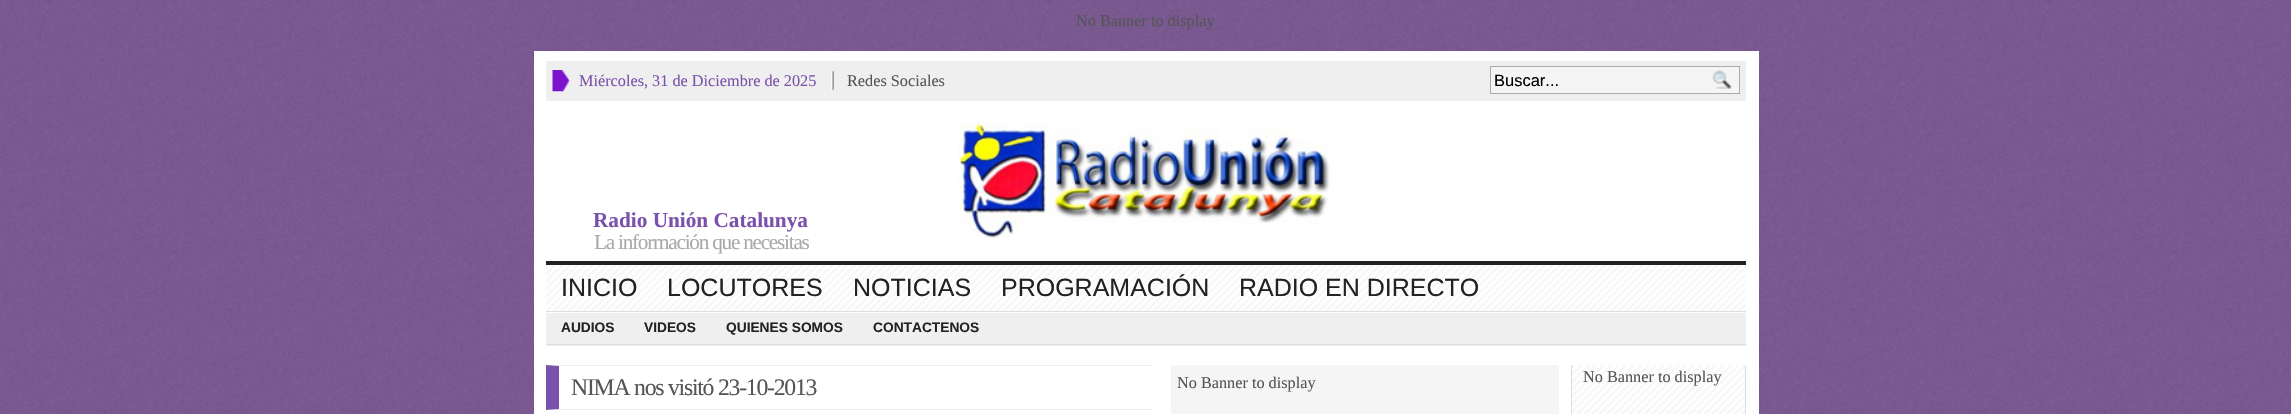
#include "include/core/SkBlurTypes.h"
#include "include/core/SkCanvas.h"
#include "include/core/SkData.h"
#include "include/core/SkFont.h"
#include "include/core/SkFontMgr.h"
#include "include/core/SkImage.h"
#include "include/core/SkMaskFilter.h"
#include "include/core/SkPaint.h"
#include "include/core/SkPathBuilder.h"
#include "include/core/SkTextBlob.h"
#include "include/effects/SkDashPathEffect.h"
#include "include/effects/SkGradientShader.h"
#include "include/utils/SkParsePath.h"

extern sk_sp<SkFontMgr> fontMgr;

void draw(SkCanvas* canvas) {
    SkPaint p;
    p.setAntiAlias(true);
    auto font = [&](const char* family, int weight, float size, bool italic = false) {
        SkFontStyle style(weight, SkFontStyle::kNormal_Width,
            italic ? SkFontStyle::kItalic_Slant : SkFontStyle::kUpright_Slant);
        SkFont result(fontMgr->matchFamilyStyle(family, style), size);
        result.setSubpixel(true);
        return result;
    };
    auto drawTracked = [&](const char* s, float x, float y, const SkFont& font, const SkPaint& ink, float letter, float word) {
        std::vector<SkGlyphID> glyphs(font.countText(s, strlen(s), SkTextEncoding::kUTF8));
        std::vector<float> xs(glyphs.size());
        font.textToGlyphs(s, strlen(s), SkTextEncoding::kUTF8, glyphs);
        font.getXPos(glyphs, xs, x);
        float extra = 0;
        for (size_t i = 0; i < glyphs.size(); i++) {
            xs[i] += extra;
            extra += letter + word * (glyphs[i] == font.unicharToGlyph(' '));
        }
        canvas->drawTextBlob(SkTextBlob::MakeFromPosHGlyphs(glyphs, xs, y, font), 0, 0, ink);
    };
    auto drawPhoto = [&](const char* path, float l, float t, float r, float b) {
        auto image = SkImages::DeferredFromEncodedData(SkData::MakeFromFileName(path));
        canvas->drawImageRect(image, SkRect::MakeLTRB(l, t, r, b), SkSamplingOptions());
    };
    canvas->clear(0xFFFFFFFF);
    drawPhoto("media/1.png", 0, 0, 2291, 414);
    auto font1 = font("Liberation Serif", 400, 16.25f);
    p.setColor(0xFF555555);
    canvas->drawString("No Banner to display", 1076, 26, font1, p);
    p.setColor(0xFFFFFFFF);
    canvas->drawRect(SkRect::MakeLTRB(534, 51, 1759, 414), p);
    p.setColor(0xFFEFEFEF);
    canvas->drawRect(SkRect::MakeLTRB(546, 61, 1746, 101), p);
    drawPhoto("media/2.png", 552, 70, 571, 92);
    p.setColor(0xFF7B52AB);
    canvas->drawString("Miércoles, 31 de Diciembre de 2025", 579, 86, font1, p);
    drawPhoto("media/3.png", 831, 71, 834, 90);
    p.setColor(0xFF555555);
    canvas->drawString("Redes Sociales", 847, 86, font1, p);
    p.setColor(0xFFF5F5F5);
    canvas->drawRect(SkRect::MakeLTRB(1490.5f, 66.5f, 1739.5f, 93.5f), p);
    p.setStyle(SkPaint::kStroke_Style);
    p.setStrokeWidth(1);
    p.setColor(0xFFAAAAAA);
    canvas->drawRect(SkRect::MakeLTRB(1490.5f, 66.5f, 1739.5f, 93.5f), p);
    auto font2 = font("Liberation Sans", 400, 16.5f);
    p.setStyle(SkPaint::kFill_Style);
    p.setColor(0xFF000000);
    canvas->drawString("Buscar...", 1494, 86, font2, p);
    drawPhoto("media/4.png", 1712, 70, 1732, 89);
    p.setColor(0xFF222222);
    canvas->drawRect(SkRect::MakeLTRB(546, 261, 1746, 265), p);
    auto font3 = font("Liberation Serif", 700, 21.25f);
    p.setColor(0xFF7B52AB);
    canvas->drawString("Radio Unión Catalunya", 593, 227, font3, p);
    auto font4 = font("Liberation Serif", 400, 21.25f);
    p.setColor(0xFFAAAAAA);
    drawTracked("La información que necesitas", 594, 249, font4, p, -1.25f, 0);
    drawPhoto("media/5.png", 958, 122, 1334, 239);
    drawPhoto("media/6.png", 546, 265, 1746, 313);
    p.setColor(0xFFDDDDDD);
    canvas->drawRect(SkRect::MakeLTRB(546, 311, 1746, 312), p);
    auto font5 = font("Liberation Sans", 400, 25);
    p.setColor(0xFF222222);
    {
        const struct { const char* s; float x, y; } items[] = {
            {"INICIO", 561, 296},
            {"LOCUTORES", 667, 296},
            {"NOTICIAS", 853, 296},
            {"PROGRAMACIÓN", 1001, 296},
            {"RADIO EN DIRECTO", 1239, 296},
        };
        for (auto [s, x, y] : items) {
            canvas->drawString(s, x, y, font5, p);
        }
    }
    p.setColor(0xFFEFEFEF);
    canvas->drawRect(SkRect::MakeLTRB(546, 313, 1746, 346), p);
    p.setColor(0xFFDDDDDD);
    canvas->drawRect(SkRect::MakeLTRB(546, 344, 1746, 345), p);
    auto font6 = font("Liberation Sans", 700, 13.75f);
    p.setColor(0xFF222222);
    {
        const struct { const char* s; float x, y; } items[] = {
            {"AUDIOS", 561, 332},
            {"VIDEOS", 644, 332},
            {"QUIENES SOMOS", 726, 332},
            {"CONTACTENOS", 873, 332},
        };
        for (auto [s, x, y] : items) {
            canvas->drawString(s, x, y, font6, p);
        }
    }
    p.setColor(0xFFEFEFEF);
    canvas->drawPath(SkPathBuilder().moveTo(546, 365).lineTo(1152, 365).lineTo(1152, 366).lineTo(559, 366).close().detach(), p);
    canvas->drawPath(SkPathBuilder().moveTo(1152, 410).lineTo(546, 410).lineTo(559, 409).lineTo(1152, 409).close().detach(), p);
    p.setColor(0xFF7B52AB);
    canvas->drawPath(SkPathBuilder().moveTo(546, 410).lineTo(546, 365).lineTo(559, 366).lineTo(559, 409).close().detach(), p);
    auto font7 = font("Liberation Serif", 400, 23.75f);
    p.setColor(0xFF555555);
    drawTracked("NIMA nos visitó 23-10-2013", 571, 395, font7, p, -1.25f, 0);
    p.setColor(0xFFF5F5F5);
    canvas->drawRect(SkRect::MakeLTRB(1171, 365, 1559, 414), p);
    p.setColor(0xFF555555);
    canvas->drawString("No Banner to display", 1177, 388, font1, p);
    drawPhoto("media/7.png", 1572, 365, 1745, 414);
    p.setColor(0xFFDDDDDD);
    canvas->drawRect(SkRect::MakeLTRB(1745, 365, 1746, 414), p);
    canvas->drawRect(SkRect::MakeLTRB(1571, 365, 1572, 414), p);
    p.setColor(0xFF555555);
    canvas->drawString("No Banner to display", 1583, 382, font1, p);
}
